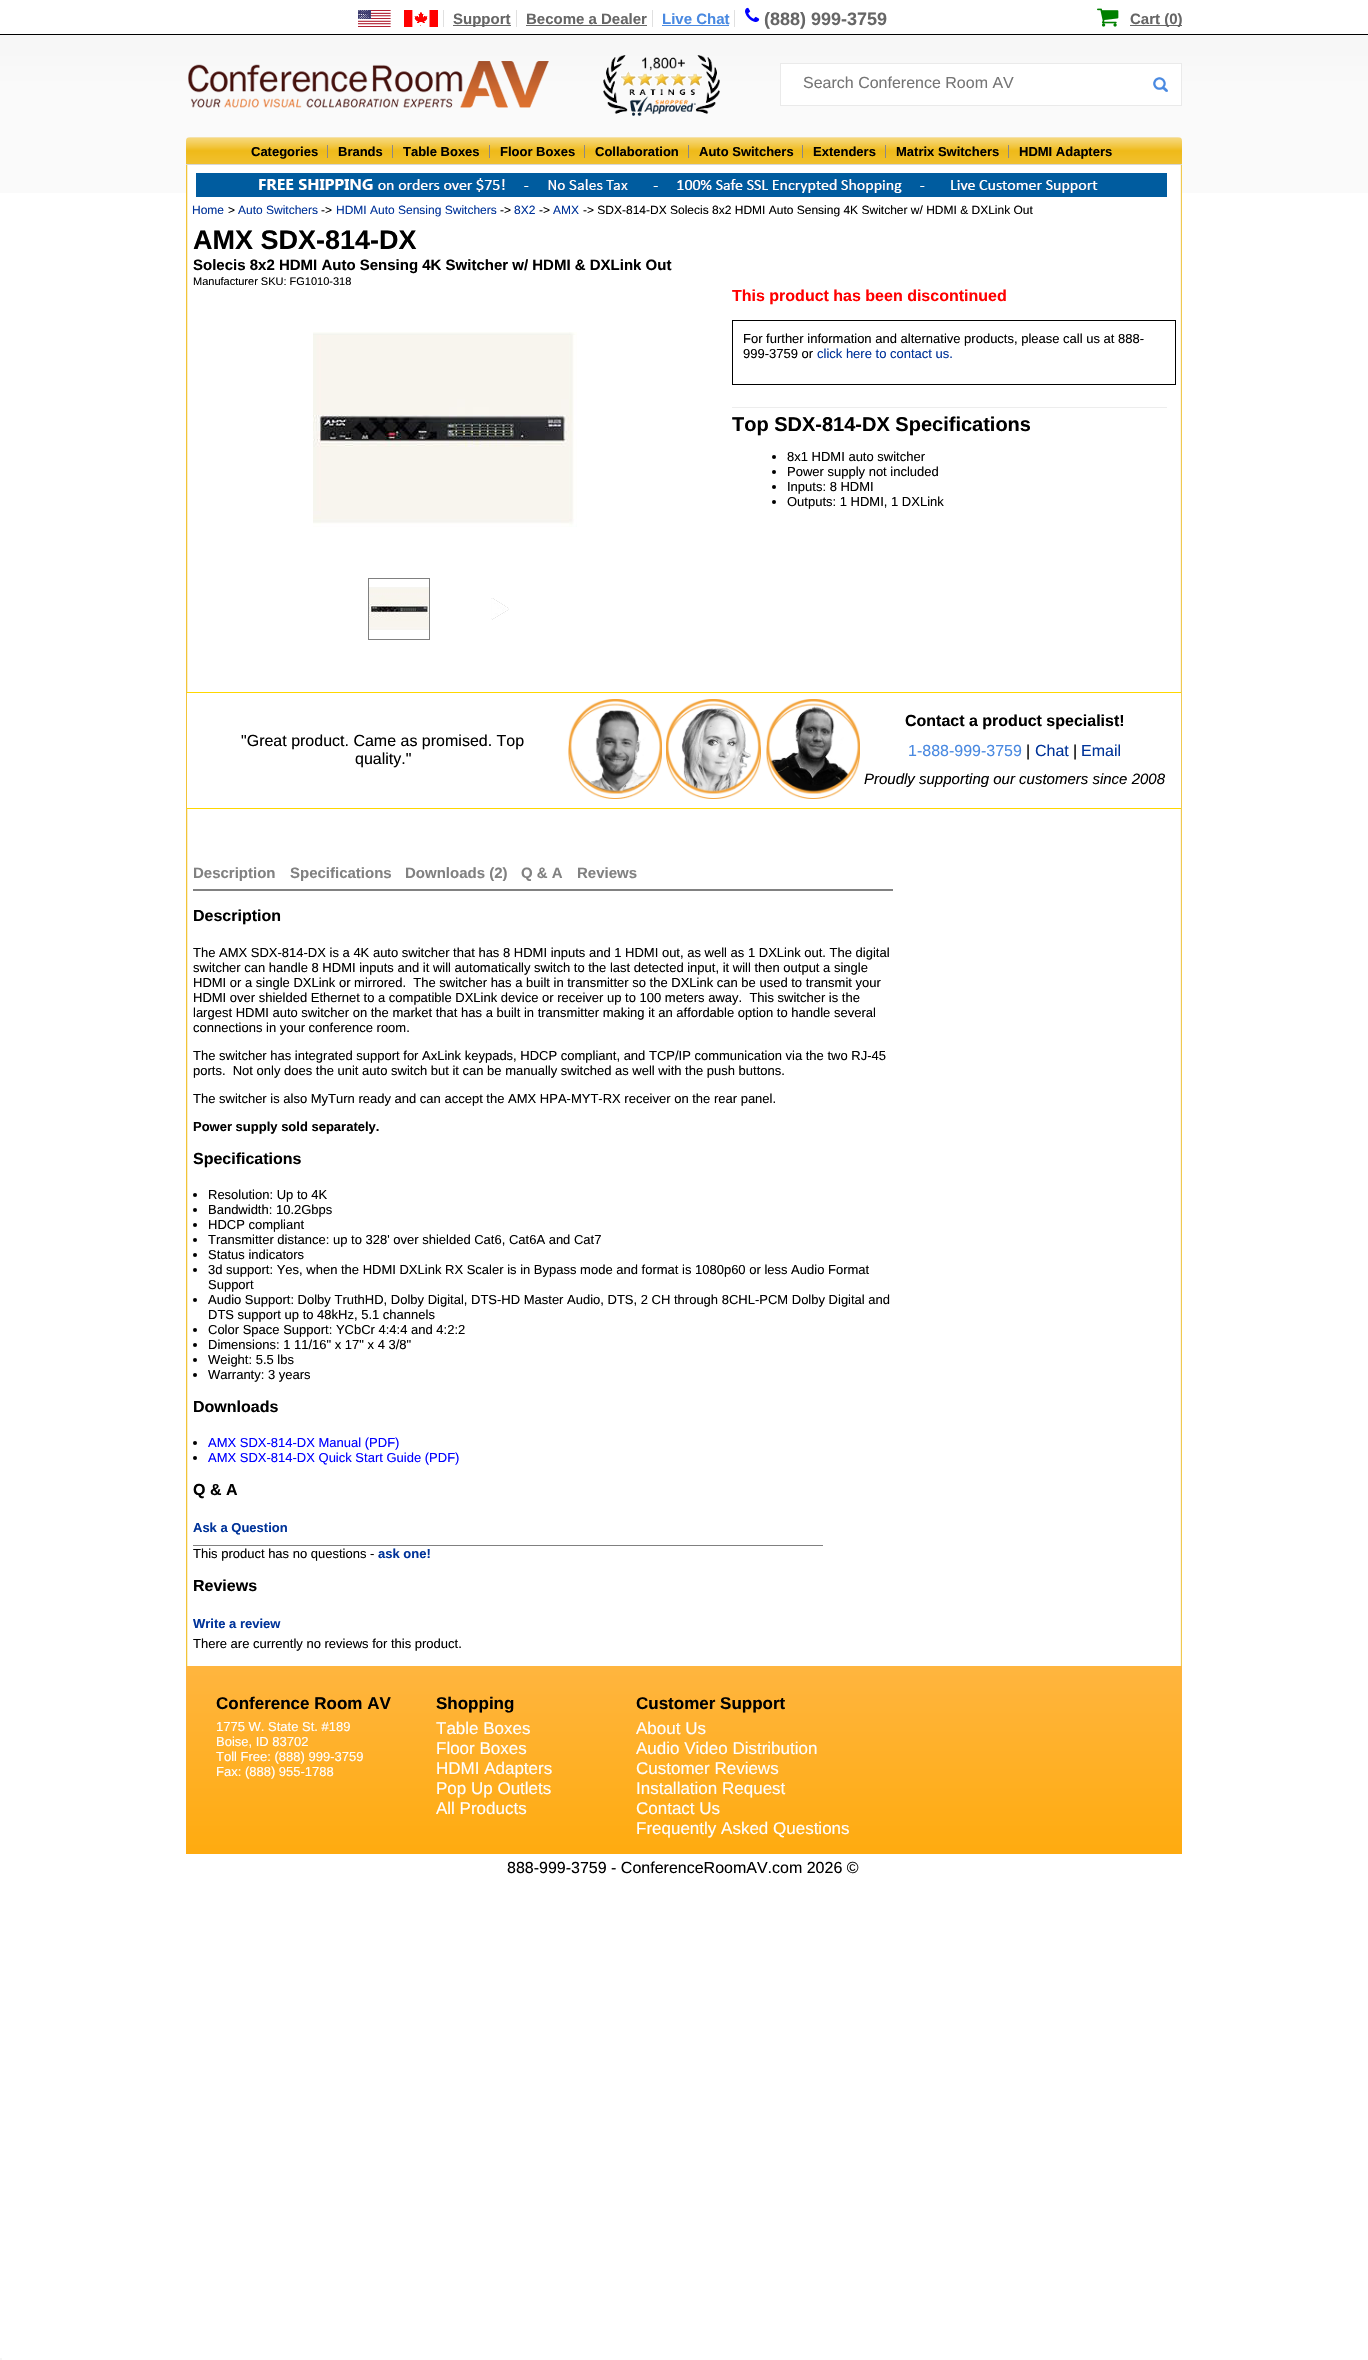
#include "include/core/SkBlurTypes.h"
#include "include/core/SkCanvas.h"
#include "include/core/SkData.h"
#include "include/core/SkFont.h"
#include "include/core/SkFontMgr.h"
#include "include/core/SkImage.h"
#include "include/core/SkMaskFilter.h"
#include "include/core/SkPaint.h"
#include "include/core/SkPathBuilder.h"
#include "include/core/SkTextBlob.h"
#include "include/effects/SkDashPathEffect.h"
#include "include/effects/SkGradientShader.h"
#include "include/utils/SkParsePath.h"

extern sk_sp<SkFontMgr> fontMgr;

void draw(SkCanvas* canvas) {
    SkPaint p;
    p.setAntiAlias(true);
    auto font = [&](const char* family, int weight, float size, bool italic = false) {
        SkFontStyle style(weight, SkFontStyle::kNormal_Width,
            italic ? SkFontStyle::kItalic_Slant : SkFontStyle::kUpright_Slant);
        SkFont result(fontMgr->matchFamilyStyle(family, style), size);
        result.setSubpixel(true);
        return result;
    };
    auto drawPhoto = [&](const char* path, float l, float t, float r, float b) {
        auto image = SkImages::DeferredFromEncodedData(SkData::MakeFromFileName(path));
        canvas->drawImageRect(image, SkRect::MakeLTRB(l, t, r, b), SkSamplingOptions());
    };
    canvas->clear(0xFFFFFFFF);
    drawPhoto("media/1.png", 0, 35, 1368, 193);
    p.setColor(0xFF000000);
    canvas->drawRect(SkRect::MakeLTRB(0, 34, 1368, 35), p);
    p.setColor(0xFFE0E0E0);
    canvas->drawRect(SkRect::MakeLTRB(443, 10, 444, 27), p);
    drawPhoto("media/2.png", 358, 10, 438, 27);
    p.setColor(0xFF666666);
    canvas->drawRect(SkRect::MakeLTRB(453, 25, 511, 26), p);
    auto font1 = font("Liberation Sans", 700, 15);
    canvas->drawString("Support", 453, 24, font1, p);
    p.setColor(0xFFE0E0E0);
    canvas->drawRect(SkRect::MakeLTRB(516, 10, 517, 27), p);
    p.setColor(0xFF666666);
    canvas->drawString("Become a Dealer", 526, 24, font1, p);
    p.setColor(0xFFE0E0E0);
    canvas->drawRect(SkRect::MakeLTRB(652, 10, 653, 27), p);
    p.setColor(0xFF666666);
    canvas->drawRect(SkRect::MakeLTRB(526, 25, 647, 26), p);
    p.setColor(0xFF4989E1);
    canvas->drawString("Live Chat", 662, 24, font1, p);
    p.setColor(0xFFE0E0E0);
    canvas->drawRect(SkRect::MakeLTRB(734, 10, 735, 27), p);
    p.setColor(0xFF4989E1);
    canvas->drawRect(SkRect::MakeLTRB(662, 25, 729, 26), p);
    drawPhoto("media/3.png", 745, 7, 760, 22);
    auto font2 = font("Liberation Sans", 700, 18);
    p.setColor(0xFF666666);
    canvas->drawString("(888) 999-3759", 764, 25, font2, p);
    drawPhoto("media/4.png", 1097, 8, 1119, 27);
    canvas->drawRect(SkRect::MakeLTRB(1130, 25, 1182, 26), p);
    canvas->drawString("Cart (0)", 1130, 24, font1, p);
    drawPhoto("media/5.png", 188, 61, 549, 108);
    drawPhoto("media/6.png", 603, 55, 720, 116);
    p.setColor(0xFFFFFFFF);
    canvas->drawRect(SkRect::MakeLTRB(780.5f, 63.5f, 1181.5f, 105.5f), p);
    p.setStyle(SkPaint::kStroke_Style);
    p.setStrokeWidth(1);
    p.setColor(0xFFEAEAEA);
    canvas->drawRect(SkRect::MakeLTRB(780.5f, 63.5f, 1181.5f, 105.5f), p);
    auto font3 = font("Liberation Sans", 400, 16);
    p.setStyle(SkPaint::kFill_Style);
    p.setColor(0xFF757575);
    canvas->drawString("Search Conference Room AV", 803, 88, font3, p);
    drawPhoto("media/7.png", 1153, 77, 1168, 92);
    drawPhoto("media/8.png", 186, 137, 1182, 165);
    p.setColor(0xFF8C8888);
    canvas->drawRect(SkRect::MakeLTRB(327, 145, 328, 158), p);
    auto font4 = font("Liberation Sans", 700, 13);
    p.setColor(0xFF000000);
    canvas->drawString("Categories", 251, 156, font4, p);
    p.setColor(0xFF8C8888);
    canvas->drawRect(SkRect::MakeLTRB(392, 145, 393, 158), p);
    p.setColor(0xFF000000);
    canvas->drawString("Brands", 338, 156, font4, p);
    p.setColor(0xFF8C8888);
    canvas->drawRect(SkRect::MakeLTRB(489, 145, 490, 158), p);
    p.setColor(0xFF000000);
    canvas->drawString("Table Boxes", 403, 156, font4, p);
    p.setColor(0xFF8C8888);
    canvas->drawRect(SkRect::MakeLTRB(584, 145, 585, 158), p);
    p.setColor(0xFF000000);
    canvas->drawString("Floor Boxes", 500, 156, font4, p);
    p.setColor(0xFF8C8888);
    canvas->drawRect(SkRect::MakeLTRB(688, 145, 689, 158), p);
    p.setColor(0xFF000000);
    canvas->drawString("Collaboration", 595, 156, font4, p);
    p.setColor(0xFF8C8888);
    canvas->drawRect(SkRect::MakeLTRB(802, 145, 803, 158), p);
    p.setColor(0xFF000000);
    canvas->drawString("Auto Switchers", 699, 156, font4, p);
    p.setColor(0xFF8C8888);
    canvas->drawRect(SkRect::MakeLTRB(885, 145, 886, 158), p);
    p.setColor(0xFF000000);
    canvas->drawString("Extenders", 813, 156, font4, p);
    p.setColor(0xFF8C8888);
    canvas->drawRect(SkRect::MakeLTRB(1008, 145, 1009, 158), p);
    p.setColor(0xFF000000);
    canvas->drawString("Matrix Switchers", 896, 156, font4, p);
    canvas->drawString("HDMI Adapters", 1019, 156, font4, p);
    drawPhoto("media/9.png", 186, 165, 1182, 1666);
    drawPhoto("media/10.png", 196, 173, 1167, 197);
    auto font5 = font("Liberation Sans", 400, 12);
    p.setColor(0xFF003399);
    canvas->drawString("Home", 192, 214, font5, p);
    p.setColor(0xFF000000);
    canvas->drawString(">", 228, 214, font5, p);
    p.setColor(0xFF003399);
    canvas->drawString("Auto Switchers", 238, 214, font5, p);
    p.setColor(0xFF000000);
    canvas->drawString("->", 321, 214, font5, p);
    p.setColor(0xFF003399);
    canvas->drawString("HDMI Auto Sensing Switchers", 336, 214, font5, p);
    p.setColor(0xFF000000);
    canvas->drawString("->", 500, 214, font5, p);
    p.setColor(0xFF003399);
    canvas->drawString("8X2", 514, 214, font5, p);
    p.setColor(0xFF000000);
    canvas->drawString("->", 539, 214, font5, p);
    p.setColor(0xFF003399);
    canvas->drawString("AMX", 553, 214, font5, p);
    p.setColor(0xFF000000);
    canvas->drawString("-> SDX-814-DX Solecis 8x2 HDMI Auto Sensing 4K Switcher w/ HDMI & DXLink Out", 583, 214, font5, p);
    auto font6 = font("Liberation Sans", 700, 27);
    canvas->drawString("AMX SDX-814-DX", 193, 249, font6, p);
    canvas->drawString("Solecis 8x2 HDMI Auto Sensing 4K Switcher w/ HDMI & DXLink Out", 193, 270, font1, p);
    auto font7 = font("Liberation Sans", 400, 11);
    canvas->drawString("Manufacturer SKU: FG1010-318", 193, 285, font7, p);
    drawPhoto("media/11.png", 313, 332, 577, 527);
    p.setStyle(SkPaint::kStroke_Style);
    p.setColor(0xFF808080);
    canvas->drawRect(SkRect::MakeLTRB(368.5f, 578.5f, 429.5f, 639.5f), p);
    drawPhoto("media/12.png", 369, 587, 429, 630);
    drawPhoto("media/13.png", 491, 598, 509, 620);
    auto font8 = font("Liberation Sans", 700, 16);
    p.setStyle(SkPaint::kFill_Style);
    p.setColor(0xFFFF0000);
    canvas->drawString("This product has been discontinued", 732, 301, font8, p);
    p.setStyle(SkPaint::kStroke_Style);
    p.setColor(0xFF000000);
    canvas->drawRect(SkRect::MakeLTRB(732.5f, 320.5f, 1175.5f, 384.5f), p);
    auto font9 = font("Liberation Sans", 400, 13);
    p.setStyle(SkPaint::kFill_Style);
    canvas->drawString("For further information and alternative products, please call us at 888-", 743, 343, font9, p);
    canvas->drawString("999-3759 or", 743, 358, font9, p);
    p.setColor(0xFF003399);
    canvas->drawString("click here to contact us.", 817, 358, font9, p);
    p.setColor(0xFFEDEDED);
    canvas->drawRect(SkRect::MakeLTRB(732, 407, 1167, 408), p);
    auto font10 = font("Liberation Sans", 700, 20);
    p.setColor(0xFF000000);
    canvas->drawString("Top SDX-814-DX Specifications", 732, 431, font10, p);
    canvas->drawCircle(774, 457, 2, p);
    canvas->drawString("8x1 HDMI auto switcher", 787, 461, font9, p);
    canvas->drawCircle(774, 472, 2, p);
    canvas->drawString("Power supply not included", 787, 476, font9, p);
    canvas->drawCircle(774, 487, 2, p);
    canvas->drawString("Inputs: 8 HDMI", 787, 491, font9, p);
    canvas->drawCircle(774, 502, 2, p);
    canvas->drawString("Outputs: 1 HDMI, 1 DXLink", 787, 506, font9, p);
    {
        const struct { float l, t, r, b; SkColor color; } items[] = {
            {187, 693, 1181, 808, 0xFFFFFFFF},
            {187, 692, 1181, 693, 0xFFFFD700},
            {187, 808, 1181, 809, 0xFFFFD700},
        };
        for (auto [l, t, r, b, color] : items) {
            p.setColor(color);
            canvas->drawRect(SkRect::MakeLTRB(l, t, r, b), p);
        }
    }
    p.setColor(0xFF000000);
    canvas->drawString("\"Great product. Came as promised. Top", 241, 746, font3, p);
    canvas->drawString("quality.\"", 355, 764, font3, p);
    drawPhoto("media/14.png", 568, 699, 662, 799);
    drawPhoto("media/15.png", 666, 699, 761, 799);
    drawPhoto("media/16.png", 766, 699, 860, 799);
    canvas->drawString("Contact a product specialist!", 905, 726, font8, p);
    p.setColor(0xFF4989E1);
    canvas->drawString("1-888-999-3759", 908, 756, font3, p);
    p.setColor(0xFF000000);
    canvas->drawString("|", 1026, 756, font3, p);
    p.setColor(0xFF003399);
    canvas->drawString("Chat", 1035, 756, font3, p);
    p.setColor(0xFF000000);
    canvas->drawString("|", 1073, 756, font3, p);
    p.setColor(0xFF003399);
    canvas->drawString("Email", 1081, 756, font3, p);
    auto font11 = font("Liberation Sans", 400, 15, true);
    p.setColor(0xFF000000);
    canvas->drawString("Proudly supporting our customers since 2008", 864, 784, font11, p);
    p.setColor(0xFF818181);
    canvas->drawRect(SkRect::MakeLTRB(193, 889, 893, 891), p);
    {
        const struct { const char* s; float x, y; } items[] = {
            {"Description", 193, 878},
            {"Specifications", 290, 878},
            {"Downloads (2)", 405, 878},
            {"Q & A", 521, 878},
            {"Reviews", 577, 878},
        };
        for (auto [s, x, y] : items) {
            canvas->drawString(s, x, y, font1, p);
        }
    }
    p.setColor(0xFF000000);
    canvas->drawString("Description", 193, 921, font8, p);
    {
        const struct { const char* s; float x, y; } items[] = {
            {"The AMX SDX-814-DX is a 4K auto switcher that has 8 HDMI inputs and 1 HDMI out, as well as 1 DXLink out. The digital", 193, 957},
            {"switcher can handle 8 HDMI inputs and it will automatically switch to the last detected input, it will then output a single", 193, 972},
            {"HDMI or a single DXLink or mirrored.  The switcher has a built in transmitter so the DXLink can be used to transmit your", 193, 987},
            {"HDMI over shielded Ethernet to a compatible DXLink device or receiver up to 100 meters away.  This switcher is the", 193, 1002},
            {"largest HDMI auto switcher on the market that has a built in transmitter making it an affordable option to handle several", 193, 1017},
            {"connections in your conference room.", 193, 1032},
            {"The switcher has integrated support for AxLink keypads, HDCP compliant, and TCP/IP communication via the two RJ-45", 193, 1060},
            {"ports.  Not only does the unit auto switch but it can be manually switched as well with the push buttons.", 193, 1075},
            {"The switcher is also MyTurn ready and can accept the AMX HPA-MYT-RX receiver on the rear panel.", 193, 1103},
        };
        for (auto [s, x, y] : items) {
            canvas->drawString(s, x, y, font9, p);
        }
    }
    canvas->drawString("Power supply sold separately.", 193, 1131, font4, p);
    canvas->drawString("Specifications", 193, 1164, font8, p);
    canvas->drawCircle(195, 1195, 2, p);
    canvas->drawString("Resolution: Up to 4K", 208, 1199, font9, p);
    canvas->drawCircle(195, 1210, 2, p);
    canvas->drawString("Bandwidth: 10.2Gbps", 208, 1214, font9, p);
    canvas->drawCircle(195, 1225, 2, p);
    canvas->drawString("HDCP compliant", 208, 1229, font9, p);
    canvas->drawCircle(195, 1240, 2, p);
    canvas->drawString("Transmitter distance: up to 328' over shielded Cat6, Cat6A and Cat7", 208, 1244, font9, p);
    canvas->drawCircle(195, 1255, 2, p);
    canvas->drawString("Status indicators", 208, 1259, font9, p);
    canvas->drawCircle(195, 1270, 2, p);
    canvas->drawString("3d support: Yes, when the HDMI DXLink RX Scaler is in Bypass mode and format is 1080p60 or less Audio Format", 208, 1274, font9, p);
    canvas->drawString("Support", 208, 1289, font9, p);
    canvas->drawCircle(195, 1300, 2, p);
    canvas->drawString("Audio Support: Dolby TruthHD, Dolby Digital, DTS-HD Master Audio, DTS, 2 CH through 8CHL-PCM Dolby Digital and", 208, 1304, font9, p);
    canvas->drawString("DTS support up to 48kHz, 5.1 channels", 208, 1319, font9, p);
    canvas->drawCircle(195, 1330, 2, p);
    canvas->drawString("Color Space Support: YCbCr 4:4:4 and 4:2:2", 208, 1334, font9, p);
    canvas->drawCircle(195, 1345, 2, p);
    canvas->drawString("Dimensions: 1 11/16\" x 17\" x 4 3/8\"", 208, 1349, font9, p);
    canvas->drawCircle(195, 1360, 2, p);
    canvas->drawString("Weight: 5.5 lbs", 208, 1364, font9, p);
    canvas->drawCircle(195, 1375, 2, p);
    canvas->drawString("Warranty: 3 years", 208, 1379, font9, p);
    canvas->drawString("Downloads", 193, 1412, font8, p);
    canvas->drawCircle(195, 1443, 2, p);
    p.setColor(0xFF0000FF);
    canvas->drawString("AMX SDX-814-DX Manual (PDF)", 208, 1447, font9, p);
    p.setColor(0xFF000000);
    canvas->drawCircle(195, 1458, 2, p);
    p.setColor(0xFF0000FF);
    canvas->drawString("AMX SDX-814-DX Quick Start Guide (PDF)", 208, 1462, font9, p);
    p.setColor(0xFF000000);
    canvas->drawString("Q & A", 193, 1495, font8, p);
    p.setColor(0xFF003399);
    canvas->drawString("Ask a Question", 193, 1532, font4, p);
    p.setColor(0xFF808080);
    canvas->drawRect(SkRect::MakeLTRB(193, 1545, 823, 1546), p);
    p.setColor(0xFF000000);
    canvas->drawString("This product has no questions -", 193, 1558, font9, p);
    p.setColor(0xFF003399);
    canvas->drawString("ask one!", 378, 1558, font4, p);
    p.setColor(0xFF000000);
    canvas->drawString("Reviews", 193, 1591, font8, p);
    p.setColor(0xFF003399);
    canvas->drawString("Write a review", 193, 1628, font4, p);
    p.setColor(0xFF000000);
    canvas->drawString("There are currently no reviews for this product.", 193, 1648, font9, p);
    {
        const SkColor colors[] = {0xFFFFFFFF, 0xFFFFB53F, 0xFFFFAB0F};
        const float stops[] = {0, 0, 1};
        const SkPoint ends[] = {{684, 1666}, {684, 1854}};
        p.setShader(SkGradientShader::MakeLinear(ends, colors, stops, 3, SkTileMode::kClamp));
        p.setAlpha(255);
    }
    canvas->drawRect(SkRect::MakeLTRB(186, 1666, 1182, 1854), p);
    auto font12 = font("Liberation Sans", 700, 17);
    p.setShader(nullptr);
    p.setColor(0xFF000000);
    canvas->drawString("Conference Room AV", 216, 1709, font12, p);
    p.setColor(0xFFFFFFFF);
    {
        const struct { const char* s; float x, y; } items[] = {
            {"1775 W. State St. #189", 216, 1731},
            {"Boise, ID 83702", 216, 1746},
            {"Toll Free: (888) 999-3759", 216, 1761},
            {"Fax: (888) 955-1788", 216, 1776},
        };
        for (auto [s, x, y] : items) {
            canvas->drawString(s, x, y, font9, p);
        }
    }
    p.setColor(0xFF000000);
    canvas->drawString("Shopping", 436, 1709, font12, p);
    auto font13 = font("Liberation Sans", 400, 17);
    p.setColor(0xFFFFFFFF);
    {
        const struct { const char* s; float x, y; } items[] = {
            {"Table Boxes", 436, 1734},
            {"Floor Boxes", 436, 1754},
            {"HDMI Adapters", 436, 1774},
            {"Pop Up Outlets", 436, 1794},
            {"All Products", 436, 1814},
        };
        for (auto [s, x, y] : items) {
            canvas->drawString(s, x, y, font13, p);
        }
    }
    p.setColor(0xFF000000);
    canvas->drawString("Customer Support", 636, 1709, font12, p);
    p.setColor(0xFFFFFFFF);
    {
        const struct { const char* s; float x, y; } items[] = {
            {"About Us", 636, 1734},
            {"Audio Video Distribution", 636, 1754},
            {"Customer Reviews", 636, 1774},
            {"Installation Request", 636, 1794},
            {"Contact Us", 636, 1814},
            {"Frequently Asked Questions", 636, 1834},
        };
        for (auto [s, x, y] : items) {
            canvas->drawString(s, x, y, font13, p);
        }
    }
    p.setColor(0xFF000000);
    canvas->drawString("888-999-3759 - ConferenceRoomAV.com 2026 ©", 507, 1873, font3, p);
    p.setColor(0xFFF5F5F5);
    canvas->drawRect(SkRect::MakeLTRB(0, 2358, 2, 2360), p);
}
